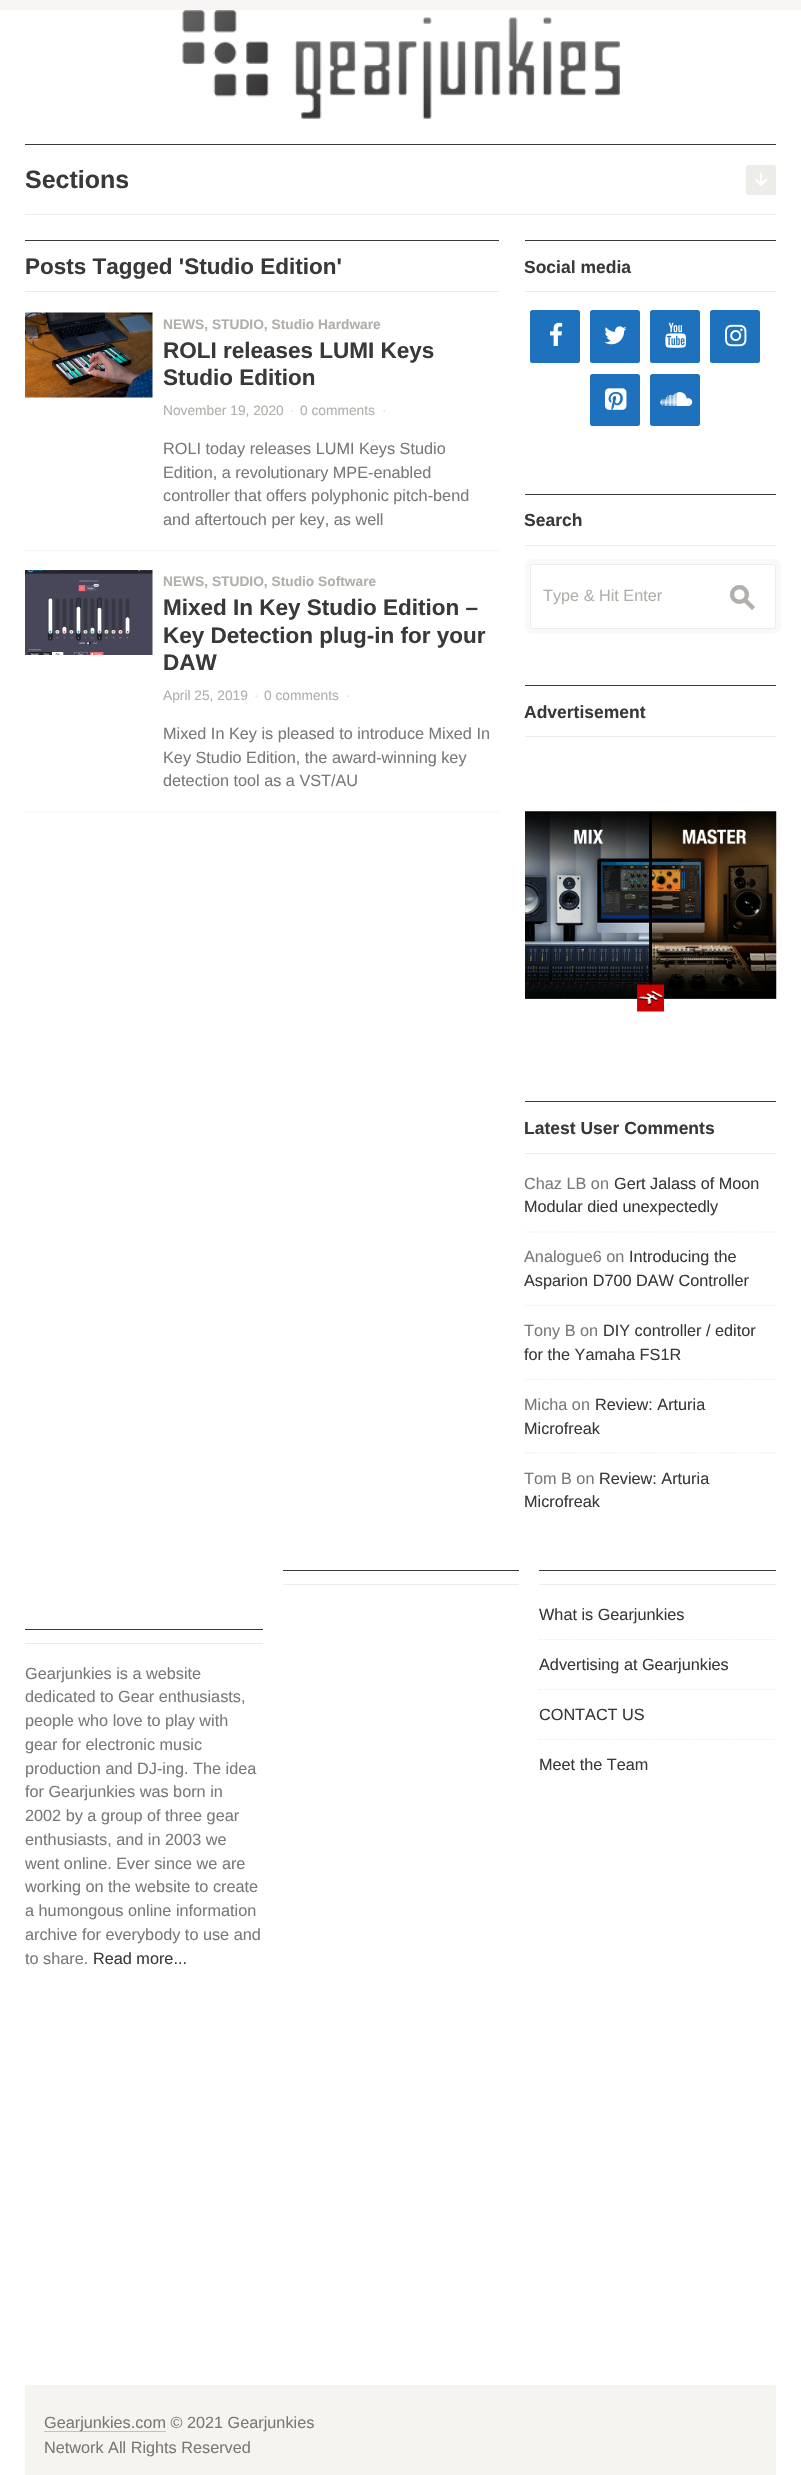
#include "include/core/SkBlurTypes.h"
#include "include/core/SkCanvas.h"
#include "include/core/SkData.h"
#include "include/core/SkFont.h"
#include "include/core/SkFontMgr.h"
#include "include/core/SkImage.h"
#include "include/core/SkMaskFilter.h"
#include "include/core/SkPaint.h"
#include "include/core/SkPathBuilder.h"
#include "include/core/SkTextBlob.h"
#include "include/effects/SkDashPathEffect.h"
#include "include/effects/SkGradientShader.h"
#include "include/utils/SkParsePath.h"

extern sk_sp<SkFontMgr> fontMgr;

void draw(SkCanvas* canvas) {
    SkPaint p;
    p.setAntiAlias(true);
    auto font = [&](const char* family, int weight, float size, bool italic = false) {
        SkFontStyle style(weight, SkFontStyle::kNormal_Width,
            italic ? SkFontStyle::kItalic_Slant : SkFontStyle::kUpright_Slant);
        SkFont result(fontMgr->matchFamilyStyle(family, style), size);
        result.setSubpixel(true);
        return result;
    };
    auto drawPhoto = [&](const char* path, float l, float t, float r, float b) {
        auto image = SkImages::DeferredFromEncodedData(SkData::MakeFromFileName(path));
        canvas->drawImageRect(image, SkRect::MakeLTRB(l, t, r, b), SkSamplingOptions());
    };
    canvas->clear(0xFFF6F5F4);
    p.setColor(0xFFFFFFFF);
    canvas->drawRect(SkRect::MakeLTRB(0, 10, 801, 2475), p);
    drawPhoto("media/1.png", 182, 10, 620, 119);
    p.setColor(0xFF3A3939);
    canvas->drawRect(SkRect::MakeLTRB(25, 144, 776, 145), p);
    p.setColor(0xFFEDECE8);
    canvas->drawRect(SkRect::MakeLTRB(25, 214, 776, 215), p);
    auto font1 = font("Liberation Sans", 700, 25);
    p.setColor(0xFF3A3939);
    canvas->drawString("Sections", 25, 188, font1, p);
    p.setColor(0xFFEDECE8);
    canvas->drawRoundRect(SkRect::MakeLTRB(746, 165, 776, 195), 2.5f, 2.5f, p);
    drawPhoto("media/2.png", 755, 172, 767, 186);
    p.setColor(0xFF3A3939);
    canvas->drawRect(SkRect::MakeLTRB(25, 240, 499, 241), p);
    p.setColor(0xFFEDECE8);
    canvas->drawRect(SkRect::MakeLTRB(25, 291, 499, 292), p);
    auto font2 = font("Liberation Sans", 700, 22.5f);
    p.setColor(0xFF3A3939);
    canvas->drawString("Posts Tagged 'Studio Edition'", 25, 274, font2, p);
    p.setStyle(SkPaint::kStroke_Style);
    p.setStrokeWidth(1.2f);
    p.setColor(0xFFEDECE8);
    p.setPathEffect(SkDashPathEffect::Make({{1.25f, 1.25f}}, 0));
    canvas->drawPath(SkPathBuilder().moveTo(25, 550.5f).lineTo(499, 550.5f).detach(), p);
    p.setPathEffect(nullptr);
    drawPhoto("media/3.png", 25, 312, 153, 398);
    auto font3 = font("Liberation Sans", 700, 13.75f);
    p.setStyle(SkPaint::kFill_Style);
    p.setColor(0xFFB2AFAB);
    canvas->drawString("NEWS, STUDIO, Studio Hardware", 163, 329, font3, p);
    p.setColor(0xFF3A3939);
    canvas->drawString("ROLI releases LUMI Keys", 163, 358, font2, p);
    canvas->drawString("Studio Edition", 163, 385, font2, p);
    auto font4 = font("Liberation Sans", 400, 13.75f);
    p.setColor(0xFFB2AFAB);
    canvas->drawString("November 19, 2020", 163, 415, font4, p);
    p.setColor(0xFFE0DFDD);
    canvas->drawString("·", 290, 415, font4, p);
    p.setColor(0xFFB2AFAB);
    canvas->drawString("0 comments", 300, 415, font4, p);
    p.setColor(0xFFE0DFDD);
    canvas->drawString("·", 382, 415, font4, p);
    auto font5 = font("Liberation Sans", 400, 16.25f);
    p.setColor(0xFF7B7976);
    {
        const struct { const char* s; float x, y; } items[] = {
            {"ROLI today releases LUMI Keys Studio", 163, 454},
            {"Edition, a revolutionary MPE-enabled", 163, 478},
            {"controller that offers polyphonic pitch-bend", 163, 501},
            {"and aftertouch per key, as well", 163, 525},
        };
        for (auto [s, x, y] : items) {
            canvas->drawString(s, x, y, font5, p);
        }
    }
    p.setStyle(SkPaint::kStroke_Style);
    p.setColor(0xFFEDECE8);
    p.setPathEffect(SkDashPathEffect::Make({{1.25f, 1.25f}}, 0));
    canvas->drawPath(SkPathBuilder().moveTo(25, 812).lineTo(499, 812).detach(), p);
    p.setPathEffect(nullptr);
    drawPhoto("media/4.png", 25, 570, 153, 655);
    p.setStyle(SkPaint::kFill_Style);
    p.setColor(0xFFB2AFAB);
    canvas->drawString("NEWS, STUDIO, Studio Software", 163, 586, font3, p);
    p.setColor(0xFF3A3939);
    {
        const struct { const char* s; float x, y; } items[] = {
            {"Mixed In Key Studio Edition –", 163, 615},
            {"Key Detection plug-in for your", 163, 643},
            {"DAW", 163, 670},
        };
        for (auto [s, x, y] : items) {
            canvas->drawString(s, x, y, font2, p);
        }
    }
    p.setColor(0xFFB2AFAB);
    canvas->drawString("April 25, 2019", 163, 700, font4, p);
    p.setColor(0xFFE0DFDD);
    canvas->drawString("·", 254, 700, font4, p);
    p.setColor(0xFFB2AFAB);
    canvas->drawString("0 comments", 264, 700, font4, p);
    p.setColor(0xFFE0DFDD);
    canvas->drawString("·", 346, 700, font4, p);
    p.setColor(0xFF7B7976);
    {
        const struct { const char* s; float x, y; } items[] = {
            {"Mixed In Key is pleased to introduce Mixed In", 163, 739},
            {"Key Studio Edition, the award-winning key", 163, 763},
            {"detection tool as a VST/AU", 163, 786},
        };
        for (auto [s, x, y] : items) {
            canvas->drawString(s, x, y, font5, p);
        }
    }
    p.setColor(0xFF3A3939);
    canvas->drawRect(SkRect::MakeLTRB(525, 240, 776, 241), p);
    p.setColor(0xFFEDECE8);
    canvas->drawRect(SkRect::MakeLTRB(525, 291, 776, 292), p);
    auto font6 = font("Liberation Sans", 700, 17.5f);
    p.setColor(0xFF3A3939);
    canvas->drawString("Social media", 524, 273, font6, p);
    p.setStyle(SkPaint::kStroke_Style);
    p.setColor(0xFFEDECE8);
    p.setPathEffect(SkDashPathEffect::Make({{1.25f, 1.25f}}, 0));
    canvas->drawPath(SkPathBuilder().moveTo(530, 363).lineTo(580, 363).detach(), p);
    p.setPathEffect(nullptr);
    p.setStyle(SkPaint::kFill_Style);
    p.setColor(0xFF1E72BD);
    canvas->drawRoundRect(SkRect::MakeLTRB(530, 310, 580, 363), 2.5f, 2.5f, p);
    drawPhoto("media/5.png", 550, 322, 563, 346);
    p.setStyle(SkPaint::kStroke_Style);
    p.setColor(0xFFEDECE8);
    p.setPathEffect(SkDashPathEffect::Make({{1.25f, 1.25f}}, 0));
    canvas->drawPath(SkPathBuilder().moveTo(590, 363).lineTo(640, 363).detach(), p);
    p.setPathEffect(nullptr);
    p.setStyle(SkPaint::kFill_Style);
    p.setColor(0xFF1E72BD);
    canvas->drawRoundRect(SkRect::MakeLTRB(590, 310, 640, 363), 2.5f, 2.5f, p);
    drawPhoto("media/6.png", 604, 326, 627, 345);
    p.setStyle(SkPaint::kStroke_Style);
    p.setColor(0xFFEDECE8);
    p.setPathEffect(SkDashPathEffect::Make({{1.25f, 1.25f}}, 0));
    canvas->drawPath(SkPathBuilder().moveTo(650, 363).lineTo(700, 363).detach(), p);
    p.setPathEffect(nullptr);
    p.setStyle(SkPaint::kFill_Style);
    p.setColor(0xFF1E72BD);
    canvas->drawRoundRect(SkRect::MakeLTRB(650, 310, 700, 363), 2.5f, 2.5f, p);
    drawPhoto("media/7.png", 665, 322, 687, 348);
    p.setStyle(SkPaint::kStroke_Style);
    p.setColor(0xFFEDECE8);
    p.setPathEffect(SkDashPathEffect::Make({{1.25f, 1.25f}}, 0));
    canvas->drawPath(SkPathBuilder().moveTo(710, 363).lineTo(760, 363).detach(), p);
    p.setPathEffect(nullptr);
    p.setStyle(SkPaint::kFill_Style);
    p.setColor(0xFF1E72BD);
    canvas->drawRoundRect(SkRect::MakeLTRB(710, 310, 760, 363), 2.5f, 2.5f, p);
    drawPhoto("media/8.png", 725, 324, 747, 347);
    p.setStyle(SkPaint::kStroke_Style);
    p.setColor(0xFFEDECE8);
    p.setPathEffect(SkDashPathEffect::Make({{1.25f, 1.25f}}, 0));
    canvas->drawPath(SkPathBuilder().moveTo(590, 427).lineTo(640, 427).detach(), p);
    p.setPathEffect(nullptr);
    p.setStyle(SkPaint::kFill_Style);
    p.setColor(0xFF1E72BD);
    canvas->drawRoundRect(SkRect::MakeLTRB(590, 374, 640, 426), 2.5f, 2.5f, p);
    drawPhoto("media/9.png", 605, 388, 627, 410);
    canvas->drawRoundRect(SkRect::MakeLTRB(650, 374, 700, 426), 2.5f, 2.5f, p);
    drawPhoto("media/10.png", 660, 392, 693, 406);
    p.setColor(0xFF3A3939);
    canvas->drawRect(SkRect::MakeLTRB(525, 494, 776, 495), p);
    p.setColor(0xFFEDECE8);
    canvas->drawRect(SkRect::MakeLTRB(525, 545, 776, 546), p);
    p.setColor(0xFF3A3939);
    canvas->drawString("Search", 524, 526, font6, p);
    p.setStyle(SkPaint::kStroke_Style);
    p.setStrokeWidth(5);
    p.setColor(0xFFF9F9F9);
    canvas->drawRoundRect(SkRect::MakeLTRB(527.5f, 561.5f, 778.5f, 631.5f), 5.5f, 5.5f, p);
    p.setStrokeWidth(1);
    p.setColor(0xFFEDECE8);
    canvas->drawRoundRect(SkRect::MakeLTRB(530.5f, 564.5f, 775.5f, 628.5f), 2, 2, p);
    p.setStyle(SkPaint::kFill_Style);
    p.setColor(0xFFB2AFAB);
    canvas->drawString("Type & Hit Enter", 543, 601, font5, p);
    auto font7 = font("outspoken", 400, 25);
    canvas->drawString("s", 730, 608, font7, p);
    p.setColor(0xFF3A3939);
    canvas->drawRect(SkRect::MakeLTRB(525, 685, 776, 686), p);
    p.setColor(0xFFEDECE8);
    canvas->drawRect(SkRect::MakeLTRB(525, 736, 776, 737), p);
    p.setColor(0xFF3A3939);
    canvas->drawString("Advertisement", 524, 718, font6, p);
    drawPhoto("media/11.png", 525, 811, 777, 1012);
    canvas->drawRect(SkRect::MakeLTRB(525, 1101, 776, 1102), p);
    p.setColor(0xFFEDECE8);
    canvas->drawRect(SkRect::MakeLTRB(525, 1153, 776, 1154), p);
    p.setColor(0xFF3A3939);
    canvas->drawString("Latest User Comments", 524, 1134, font6, p);
    p.setStyle(SkPaint::kStroke_Style);
    p.setStrokeWidth(1.2f);
    p.setColor(0xFFEDECE8);
    p.setPathEffect(SkDashPathEffect::Make({{1.25f, 1.25f}}, 0));
    canvas->drawPath(SkPathBuilder().moveTo(525, 1232).lineTo(776, 1232).detach(), p);
    p.setPathEffect(nullptr);
    p.setStyle(SkPaint::kFill_Style);
    p.setColor(0xFF7B7976);
    canvas->drawString("Chaz LB on", 524, 1189, font5, p);
    p.setColor(0xFF3A3939);
    canvas->drawString("Gert Jalass of Moon", 614, 1189, font5, p);
    canvas->drawString("Modular died unexpectedly", 524, 1212, font5, p);
    p.setStyle(SkPaint::kStroke_Style);
    p.setColor(0xFFEDECE8);
    p.setPathEffect(SkDashPathEffect::Make({{1.25f, 1.25f}}, 0));
    canvas->drawPath(SkPathBuilder().moveTo(525, 1305.5f).lineTo(776, 1305.5f).detach(), p);
    p.setPathEffect(nullptr);
    p.setStyle(SkPaint::kFill_Style);
    p.setColor(0xFF7B7976);
    canvas->drawString("Analogue6 on", 524, 1262, font5, p);
    p.setColor(0xFF3A3939);
    canvas->drawString("Introducing the", 629, 1262, font5, p);
    canvas->drawString("Asparion D700 DAW Controller", 524, 1286, font5, p);
    p.setStyle(SkPaint::kStroke_Style);
    p.setColor(0xFFEDECE8);
    p.setPathEffect(SkDashPathEffect::Make({{1.25f, 1.25f}}, 0));
    canvas->drawPath(SkPathBuilder().moveTo(525, 1379.5f).lineTo(776, 1379.5f).detach(), p);
    p.setPathEffect(nullptr);
    p.setStyle(SkPaint::kFill_Style);
    p.setColor(0xFF7B7976);
    canvas->drawString("Tony B on", 524, 1336, font5, p);
    p.setColor(0xFF3A3939);
    canvas->drawString("DIY controller / editor", 603, 1336, font5, p);
    canvas->drawString("for the Yamaha FS1R", 524, 1360, font5, p);
    p.setStyle(SkPaint::kStroke_Style);
    p.setColor(0xFFEDECE8);
    p.setPathEffect(SkDashPathEffect::Make({{1.25f, 1.25f}}, 0));
    canvas->drawPath(SkPathBuilder().moveTo(525, 1453).lineTo(776, 1453).detach(), p);
    p.setPathEffect(nullptr);
    p.setStyle(SkPaint::kFill_Style);
    p.setColor(0xFF7B7976);
    canvas->drawString("Micha on", 524, 1410, font5, p);
    p.setColor(0xFF3A3939);
    canvas->drawString("Review: Arturia", 595, 1410, font5, p);
    canvas->drawString("Microfreak", 524, 1434, font5, p);
    p.setColor(0xFF7B7976);
    canvas->drawString("Tom B on", 524, 1484, font5, p);
    p.setColor(0xFF3A3939);
    canvas->drawString("Review: Arturia", 599, 1484, font5, p);
    canvas->drawString("Microfreak", 524, 1507, font5, p);
    {
        const struct { float l, t, r, b; SkColor color; } items[] = {
            {283, 1570, 519, 1571, 0xFF3A3939},
            {283, 1584, 519, 1585, 0xFFEDECE8},
            {25, 1629, 263, 1630, 0xFF3A3939},
            {25, 1643, 263, 1644, 0xFFEDECE8},
        };
        for (auto [l, t, r, b, color] : items) {
            p.setColor(color);
            canvas->drawRect(SkRect::MakeLTRB(l, t, r, b), p);
        }
    }
    p.setColor(0xFF7B7976);
    {
        const struct { const char* s; float x, y; } items[] = {
            {"Gearjunkies is a website", 25, 1679},
            {"dedicated to Gear enthusiasts,", 25, 1702},
            {"people who love to play with", 25, 1726},
            {"gear for electronic music", 25, 1750},
            {"production and DJ-ing. The idea", 25, 1774},
            {"for Gearjunkies was born in", 25, 1797},
            {"2002 by a group of three gear", 25, 1821},
            {"enthusiasts, and in 2003 we", 25, 1845},
            {"went online. Ever since we are", 25, 1869},
            {"working on the website to create", 25, 1892},
            {"a humongous online information", 25, 1916},
            {"archive for everybody to use and", 25, 1940},
            {"to share.", 25, 1964},
        };
        for (auto [s, x, y] : items) {
            canvas->drawString(s, x, y, font5, p);
        }
    }
    p.setColor(0xFF3A3939);
    canvas->drawString("Read more...", 93, 1964, font5, p);
    canvas->drawRect(SkRect::MakeLTRB(539, 1570, 776, 1571), p);
    p.setColor(0xFFEDECE8);
    canvas->drawRect(SkRect::MakeLTRB(539, 1584, 776, 1585), p);
    p.setStyle(SkPaint::kStroke_Style);
    p.setPathEffect(SkDashPathEffect::Make({{1.25f, 1.25f}}, 0));
    canvas->drawPath(SkPathBuilder().moveTo(539, 1639.5f).lineTo(776, 1639.5f).detach(), p);
    p.setPathEffect(nullptr);
    p.setStyle(SkPaint::kFill_Style);
    p.setColor(0xFF3A3939);
    canvas->drawString("What is Gearjunkies", 539, 1620, font5, p);
    p.setStyle(SkPaint::kStroke_Style);
    p.setColor(0xFFEDECE8);
    p.setPathEffect(SkDashPathEffect::Make({{1.25f, 1.25f}}, 0));
    canvas->drawPath(SkPathBuilder().moveTo(539, 1689.5f).lineTo(776, 1689.5f).detach(), p);
    p.setPathEffect(nullptr);
    p.setStyle(SkPaint::kFill_Style);
    p.setColor(0xFF3A3939);
    canvas->drawString("Advertising at Gearjunkies", 539, 1670, font5, p);
    p.setStyle(SkPaint::kStroke_Style);
    p.setColor(0xFFEDECE8);
    p.setPathEffect(SkDashPathEffect::Make({{1.25f, 1.25f}}, 0));
    canvas->drawPath(SkPathBuilder().moveTo(539, 1739.5f).lineTo(776, 1739.5f).detach(), p);
    p.setPathEffect(nullptr);
    p.setStyle(SkPaint::kFill_Style);
    p.setColor(0xFF3A3939);
    canvas->drawString("CONTACT US", 539, 1720, font5, p);
    canvas->drawString("Meet the Team", 539, 1770, font5, p);
    p.setColor(0xFFF5F4F1);
    canvas->drawPath(SkPathBuilder().moveTo(27.5f, 2385).lineTo(773.5f, 2385).cubicTo(775, 2385, 776, 2386, 776, 2387.5f).lineTo(776, 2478).lineTo(25, 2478).lineTo(25, 2387.5f).cubicTo(25, 2386, 26, 2385, 27.5f, 2385).close().detach(), p);
    p.setColor(0xFFC4C2BE);
    canvas->drawRect(SkRect::MakeLTRB(44, 2431, 166, 2432), p);
    p.setColor(0xFF7B7976);
    canvas->drawString("Gearjunkies.com © 2021 Gearjunkies", 44, 2428, font5, p);
    canvas->drawString("Network All Rights Reserved", 44, 2453, font5, p);
}
